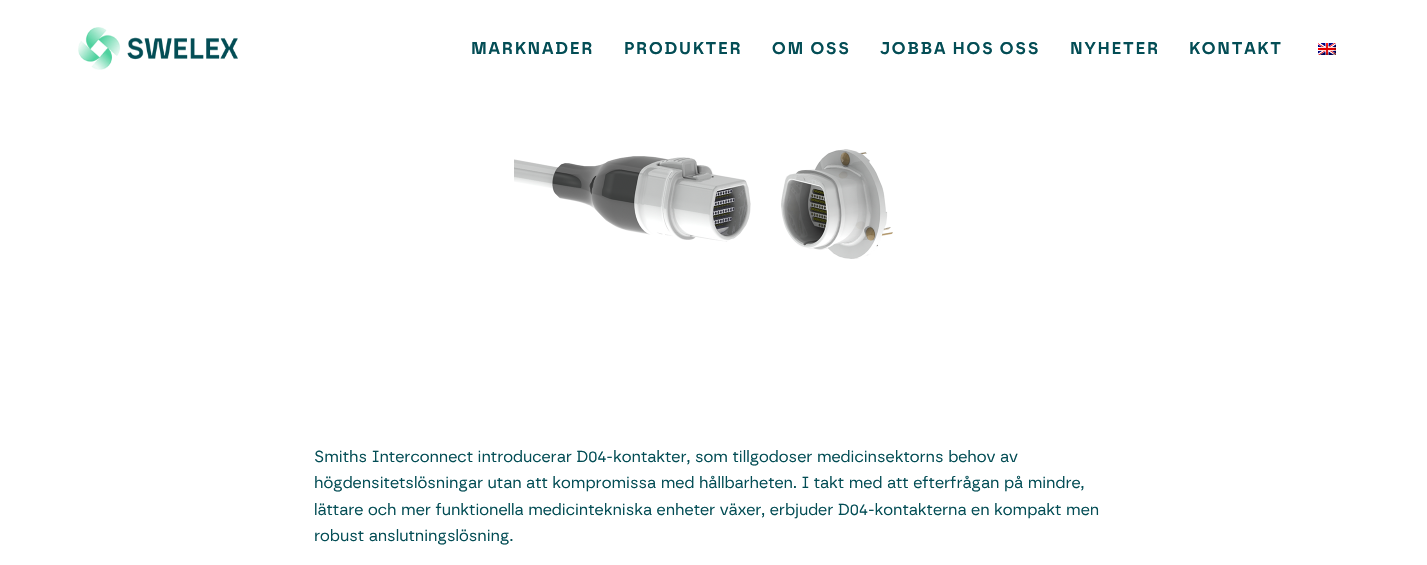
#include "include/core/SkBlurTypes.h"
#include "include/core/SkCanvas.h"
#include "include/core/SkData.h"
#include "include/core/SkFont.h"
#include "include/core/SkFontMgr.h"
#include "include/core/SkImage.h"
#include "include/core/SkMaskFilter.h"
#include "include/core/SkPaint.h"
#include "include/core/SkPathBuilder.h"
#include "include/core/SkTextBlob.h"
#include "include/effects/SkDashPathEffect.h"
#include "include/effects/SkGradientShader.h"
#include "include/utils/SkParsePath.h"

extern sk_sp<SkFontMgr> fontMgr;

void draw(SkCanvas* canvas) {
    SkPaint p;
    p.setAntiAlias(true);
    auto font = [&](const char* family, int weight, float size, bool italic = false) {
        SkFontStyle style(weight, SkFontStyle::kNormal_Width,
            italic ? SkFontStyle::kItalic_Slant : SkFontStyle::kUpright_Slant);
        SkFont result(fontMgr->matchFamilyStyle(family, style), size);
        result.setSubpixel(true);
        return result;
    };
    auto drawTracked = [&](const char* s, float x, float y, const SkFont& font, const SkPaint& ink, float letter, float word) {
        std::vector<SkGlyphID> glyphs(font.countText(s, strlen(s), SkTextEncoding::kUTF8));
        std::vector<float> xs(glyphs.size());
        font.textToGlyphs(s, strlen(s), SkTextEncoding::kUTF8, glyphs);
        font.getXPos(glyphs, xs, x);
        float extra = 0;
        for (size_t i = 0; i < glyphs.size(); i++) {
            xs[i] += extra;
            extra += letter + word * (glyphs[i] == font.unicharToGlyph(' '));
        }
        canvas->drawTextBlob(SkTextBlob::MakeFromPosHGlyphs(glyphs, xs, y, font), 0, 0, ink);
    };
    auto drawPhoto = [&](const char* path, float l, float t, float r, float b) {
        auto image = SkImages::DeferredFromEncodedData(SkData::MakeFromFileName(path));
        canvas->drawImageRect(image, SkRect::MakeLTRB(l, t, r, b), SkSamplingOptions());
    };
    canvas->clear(0xFFFFFFFF);
    drawPhoto("media/1.png", 78, 27, 238, 70);
    auto font1 = font("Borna", 600, 17);
    p.setColor(0xFF034D55);
    {
        const struct { const char* s; float x, y; } items[] = {
            {"MARKNADER", 471, 54},
            {"PRODUKTER", 624, 54},
            {"OM OSS", 772, 54},
            {"JOBBA HOS OSS", 880, 54},
            {"NYHETER", 1070, 54},
            {"KONTAKT", 1189, 54},
        };
        for (auto [s, x, y] : items) {
            drawTracked(s, x, y, font1, p, 1.75f, 0);
        }
    }
    drawPhoto("media/2.png", 1318, 43, 1336, 55);
    drawPhoto("media/3.png", 514, 149, 893, 259);
    auto font2 = font("Borna", 400, 16);
    {
        const struct { const char* s; float x, y; } items[] = {
            {"Smiths Interconnect introducerar D04-kontakter, som tillgodoser medicinsektorns behov av", 314, 462},
            {"högdensitetslösningar utan att kompromissa med hållbarheten. I takt med att efterfrågan på mindre,", 314, 488},
            {"lättare och mer funktionella medicintekniska enheter växer, erbjuder D04-kontakterna en kompakt men", 314, 515},
            {"robust anslutningslösning.", 314, 541},
        };
        for (auto [s, x, y] : items) {
            canvas->drawString(s, x, y, font2, p);
        }
    }
}
